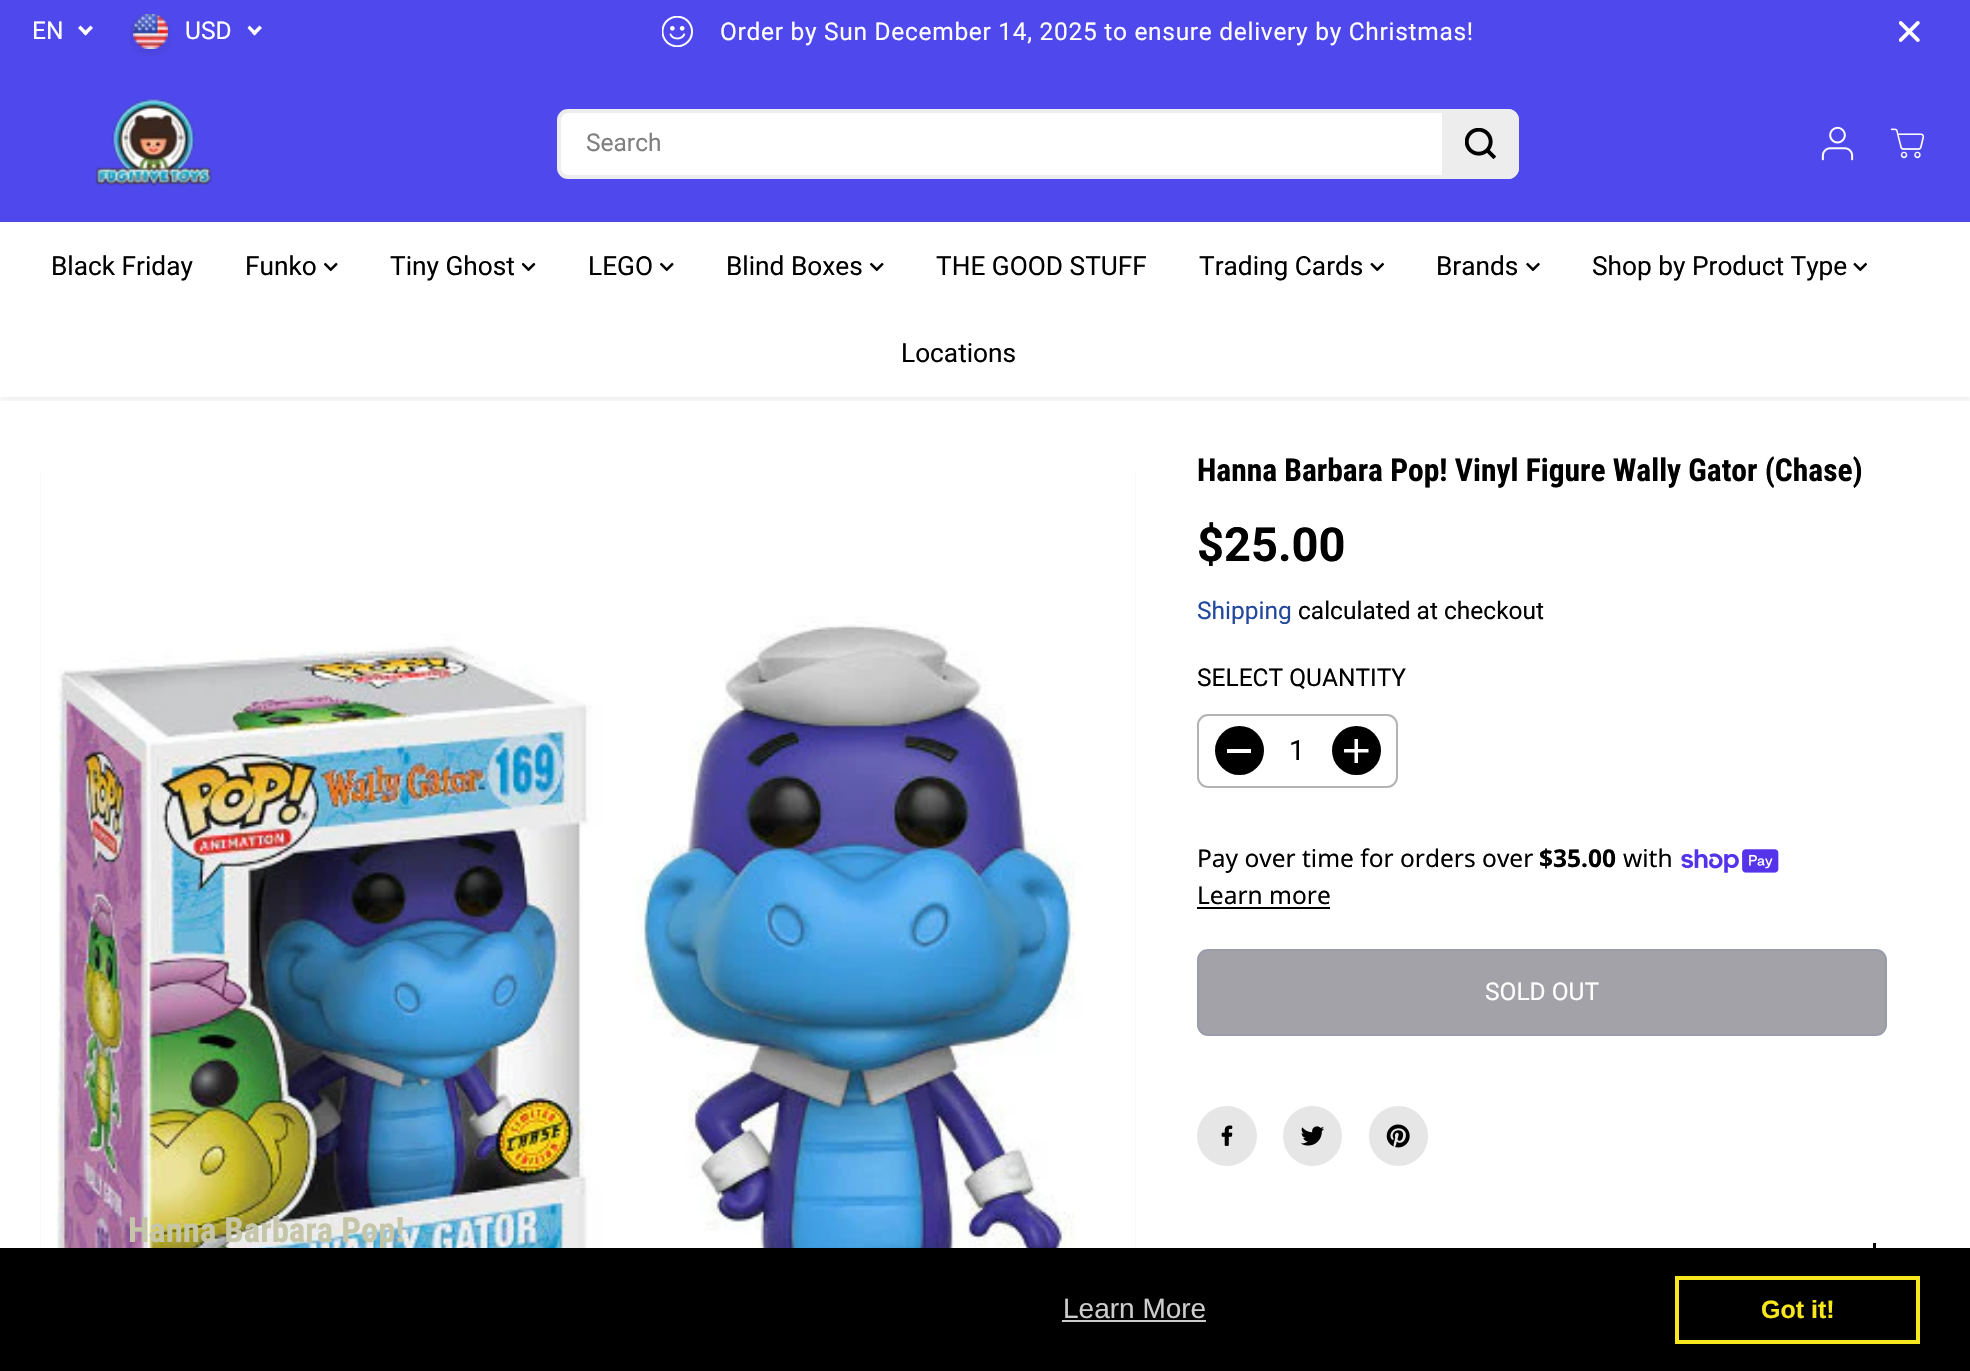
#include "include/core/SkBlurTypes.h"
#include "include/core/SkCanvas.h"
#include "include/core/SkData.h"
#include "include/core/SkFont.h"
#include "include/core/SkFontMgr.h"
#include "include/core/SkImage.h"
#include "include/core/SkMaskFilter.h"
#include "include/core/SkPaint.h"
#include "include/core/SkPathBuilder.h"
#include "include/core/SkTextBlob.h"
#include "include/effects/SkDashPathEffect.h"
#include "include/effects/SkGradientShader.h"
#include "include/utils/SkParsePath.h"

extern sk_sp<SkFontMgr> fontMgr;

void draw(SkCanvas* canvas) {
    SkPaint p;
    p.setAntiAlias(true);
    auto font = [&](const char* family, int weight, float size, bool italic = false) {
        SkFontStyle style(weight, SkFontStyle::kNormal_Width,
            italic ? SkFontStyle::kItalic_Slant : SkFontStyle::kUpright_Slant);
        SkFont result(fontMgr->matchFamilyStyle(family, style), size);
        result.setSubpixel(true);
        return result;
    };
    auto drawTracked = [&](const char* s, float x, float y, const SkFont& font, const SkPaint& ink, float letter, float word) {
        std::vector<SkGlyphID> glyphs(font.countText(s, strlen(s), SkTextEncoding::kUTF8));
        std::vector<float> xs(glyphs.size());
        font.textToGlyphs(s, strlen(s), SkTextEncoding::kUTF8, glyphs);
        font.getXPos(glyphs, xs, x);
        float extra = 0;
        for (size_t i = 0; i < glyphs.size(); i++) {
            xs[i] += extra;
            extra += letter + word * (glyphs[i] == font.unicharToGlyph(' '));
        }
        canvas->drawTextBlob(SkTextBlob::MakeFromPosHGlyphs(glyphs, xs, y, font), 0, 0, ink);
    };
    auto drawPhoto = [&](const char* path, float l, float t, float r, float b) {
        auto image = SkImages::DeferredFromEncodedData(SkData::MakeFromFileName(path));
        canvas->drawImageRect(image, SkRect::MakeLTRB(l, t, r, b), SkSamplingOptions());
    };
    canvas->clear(0xFFFFFFFF);
    p.setColor(0xFF4F48EC);
    canvas->drawRect(SkRect::MakeLTRB(0, 63, 1970, 222), p);
    canvas->save();
    canvas->clipRect(SkRect::MakeLTRB(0, 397, 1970, 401));
    p.setColor(0x0D000000);
    p.setMaskFilter(SkMaskFilter::MakeBlur(kNormal_SkBlurStyle, 2));
    canvas->drawRect(SkRect::MakeLTRB(0, 67, 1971, 401), p);
    p.setMaskFilter(nullptr);
    canvas->restore();
    p.setColor(0xFF4F48EC);
    canvas->drawRect(SkRect::MakeLTRB(0, 0, 1970, 63), p);
    auto font1 = font("Roboto", 400, 24.5f);
    p.setColor(0xFFFFFFFF);
    canvas->drawString("EN", 32, 39, font1, p);
    canvas->drawPath(SkPathBuilder().moveTo(90.5f, 25.5f).lineTo(93, 28).lineTo(85.5f, 35.5f).lineTo(83, 33).close().detach(), p);
    canvas->drawPath(SkPathBuilder().moveTo(80.5f, 25.5f).lineTo(88, 33).lineTo(85.5f, 35.5f).lineTo(78, 28).close().detach(), p);
    drawPhoto("media/1.png", 129, 14, 172, 56);
    canvas->drawString("USD", 185, 39, font1, p);
    canvas->drawPath(SkPathBuilder().moveTo(259.5f, 25.5f).lineTo(262, 28).lineTo(254.5f, 35.5f).lineTo(252, 33).close().detach(), p);
    canvas->drawPath(SkPathBuilder().moveTo(249.5f, 25.5f).lineTo(257, 33).lineTo(254.5f, 35.5f).lineTo(247.5f, 28).close().detach(), p);
    drawPhoto("media/2.png", 662, 16, 693, 47);
    drawTracked("Order by Sun December 14, 2025 to ensure delivery by Christmas!", 720, 40, font1, p, 0.7f, 0);
    drawPhoto("media/3.png", 1899, 21, 1920, 42);
    drawPhoto("media/4.png", 95, 98, 212, 186);
    canvas->drawRoundRect(SkRect::MakeLTRB(559, 111, 1517, 177), 9, 9, p);
    p.setStyle(SkPaint::kStroke_Style);
    p.setStrokeWidth(4);
    p.setColor(0xFFEDEDED);
    canvas->drawRoundRect(SkRect::MakeLTRB(559, 111, 1517, 177), 9, 9, p);
    p.setStyle(SkPaint::kFill_Style);
    p.setColor(0xFF808080);
    canvas->drawString("Search", 586, 151, font1, p);
    p.setColor(0xFFEDEDED);
    canvas->drawPath(SkPathBuilder().moveTo(1442, 109).lineTo(1508, 109).cubicTo(1514, 109, 1519, 114, 1519, 120).lineTo(1519, 168).cubicTo(1519, 174, 1514, 179, 1508, 179).lineTo(1442, 179).close().detach(), p);
    drawPhoto("media/5.png", 1465, 128, 1496, 159);
    drawPhoto("media/6.png", 1821, 126, 1854, 161);
    drawPhoto("media/7.png", 1890, 128, 1925, 159);
    auto font2 = font("Roboto", 400, 26.25f);
    p.setColor(0xFF000000);
    canvas->drawString("Black Friday", 51, 275, font2, p);
    canvas->drawString("Funko", 245, 275, font2, p);
    drawPhoto("media/8.png", 324, 262, 338, 272);
    canvas->drawString("Tiny Ghost", 390, 275, font2, p);
    drawPhoto("media/9.png", 522, 262, 536, 272);
    canvas->drawString("LEGO", 588, 275, font2, p);
    drawPhoto("media/8.png", 660, 262, 674, 272);
    canvas->drawString("Blind Boxes", 726, 275, font2, p);
    drawPhoto("media/8.png", 870, 262, 884, 272);
    canvas->drawString("THE GOOD STUFF", 936, 275, font2, p);
    canvas->drawString("Trading Cards", 1199, 275, font2, p);
    drawPhoto("media/10.png", 1370, 262, 1384, 272);
    canvas->drawString("Brands", 1436, 275, font2, p);
    drawPhoto("media/11.png", 1526, 262, 1540, 272);
    canvas->drawString("Shop by Product Type", 1592, 275, font2, p);
    drawPhoto("media/10.png", 1853, 262, 1867, 272);
    canvas->drawString("Locations", 901, 362, font2, p);
    p.setColor(0xFFEFEEF1);
    canvas->drawRoundRect(SkRect::MakeLTRB(40, 459, 1136, 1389), 18, 18, p);
    drawPhoto("media/12.png", 40, 459, 1136, 1248);
    auto font3 = font("Roboto Condensed", 700, 31.5f);
    p.setColor(0xFF000000);
    canvas->drawString("Hanna Barbara Pop! Vinyl Figure Wally Gator (Chase)", 1197, 481, font3, p);
    auto font4 = font("Roboto", 700, 47);
    canvas->drawString("$25.00", 1197, 561, font4, p);
    p.setColor(0xFF22489E);
    canvas->drawString("Shipping", 1197, 619, font1, p);
    p.setColor(0xFF000000);
    canvas->drawString("calculated at checkout", 1298, 619, font1, p);
    canvas->drawString("SELECT QUANTITY", 1197, 686, font1, p);
    p.setStyle(SkPaint::kStroke_Style);
    p.setStrokeWidth(2);
    p.setColor(0xFFB3B3B3);
    canvas->drawRoundRect(SkRect::MakeLTRB(1198, 715, 1397, 787), 10, 10, p);
    p.setStyle(SkPaint::kFill_Style);
    p.setColor(0xFF000000);
    canvas->drawCircle(1239.5f, 750.5f, 24.5f, p);
    p.setColor(0xFFFFFFFF);
    canvas->drawRect(SkRect::MakeLTRB(1227, 749, 1251, 753), p);
    auto font5 = font("Roboto", 400, 28);
    p.setColor(0xFF000000);
    canvas->drawString("1", 1289, 760, font5, p);
    canvas->drawCircle(1356.5f, 750.5f, 24.5f, p);
    drawPhoto("media/13.png", 1344, 739, 1369, 763);
    auto font6 = font("Noto Sans", 400, 24.5f);
    canvas->drawString("Pay over time for orders over", 1197, 867, font6, p);
    auto font7 = font("Noto Sans", 700, 24.5f);
    canvas->drawString("$35.00", 1539, 867, font7, p);
    canvas->drawString("with", 1623, 867, font6, p);
    drawPhoto("media/14.png", 1681, 849, 1779, 873);
    canvas->drawString("Learn more", 1197, 904, font6, p);
    canvas->drawRect(SkRect::MakeLTRB(1197, 907, 1330, 909), p);
    p.setColor(0xFFA3A2A9);
    canvas->drawRoundRect(SkRect::MakeLTRB(1198, 950, 1886, 1035), 10, 10, p);
    p.setStyle(SkPaint::kStroke_Style);
    p.setColor(0xFF9A9CA9);
    canvas->drawRoundRect(SkRect::MakeLTRB(1198, 950, 1886, 1035), 10, 10, p);
    p.setStyle(SkPaint::kFill_Style);
    p.setColor(0xFFFFFFFF);
    canvas->drawString("SOLD OUT", 1485, 1000, font1, p);
    p.setColor(0xFFE6E6E6);
    canvas->drawCircle(1227, 1136, 30, p);
    drawPhoto("media/15.png", 1221, 1125, 1233, 1146);
    canvas->drawRoundRect(SkRect::MakeLTRB(1283, 1106, 1342, 1166), 29.5f, 29.5f, p);
    drawPhoto("media/16.png", 1300, 1126, 1324, 1146);
    canvas->drawRoundRect(SkRect::MakeLTRB(1369, 1106, 1428, 1166), 29.5f, 29.5f, p);
    drawPhoto("media/17.png", 1386, 1124, 1410, 1148);
    p.setColor(0xFF000000);
    canvas->drawRect(SkRect::MakeLTRB(1873, 1243, 1876, 1248), p);
    auto font8 = font("Roboto Condensed", 700, 34.75f);
    p.setColor(0xFFC5C5A9);
    canvas->drawString("Hanna Barbara Pop!", 128, 1242, font8, p);
    p.setColor(0xFF000000);
    canvas->drawRect(SkRect::MakeLTRB(0, 1248, 1970, 1371), p);
    auto font9 = font("Liberation Sans", 400, 28);
    p.setColor(0xFFCCCCCC);
    canvas->drawString("Learn More", 1063, 1318, font9, p);
    canvas->drawRect(SkRect::MakeLTRB(1062, 1320, 1206, 1322), p);
    p.setStyle(SkPaint::kStroke_Style);
    p.setStrokeWidth(4);
    p.setColor(0xFFF8E71C);
    canvas->drawRect(SkRect::MakeLTRB(1677, 1278, 1918, 1342), p);
    auto font10 = font("Liberation Sans", 700, 25);
    p.setStyle(SkPaint::kFill_Style);
    canvas->drawString("Got it!", 1761, 1318, font10, p);
}
